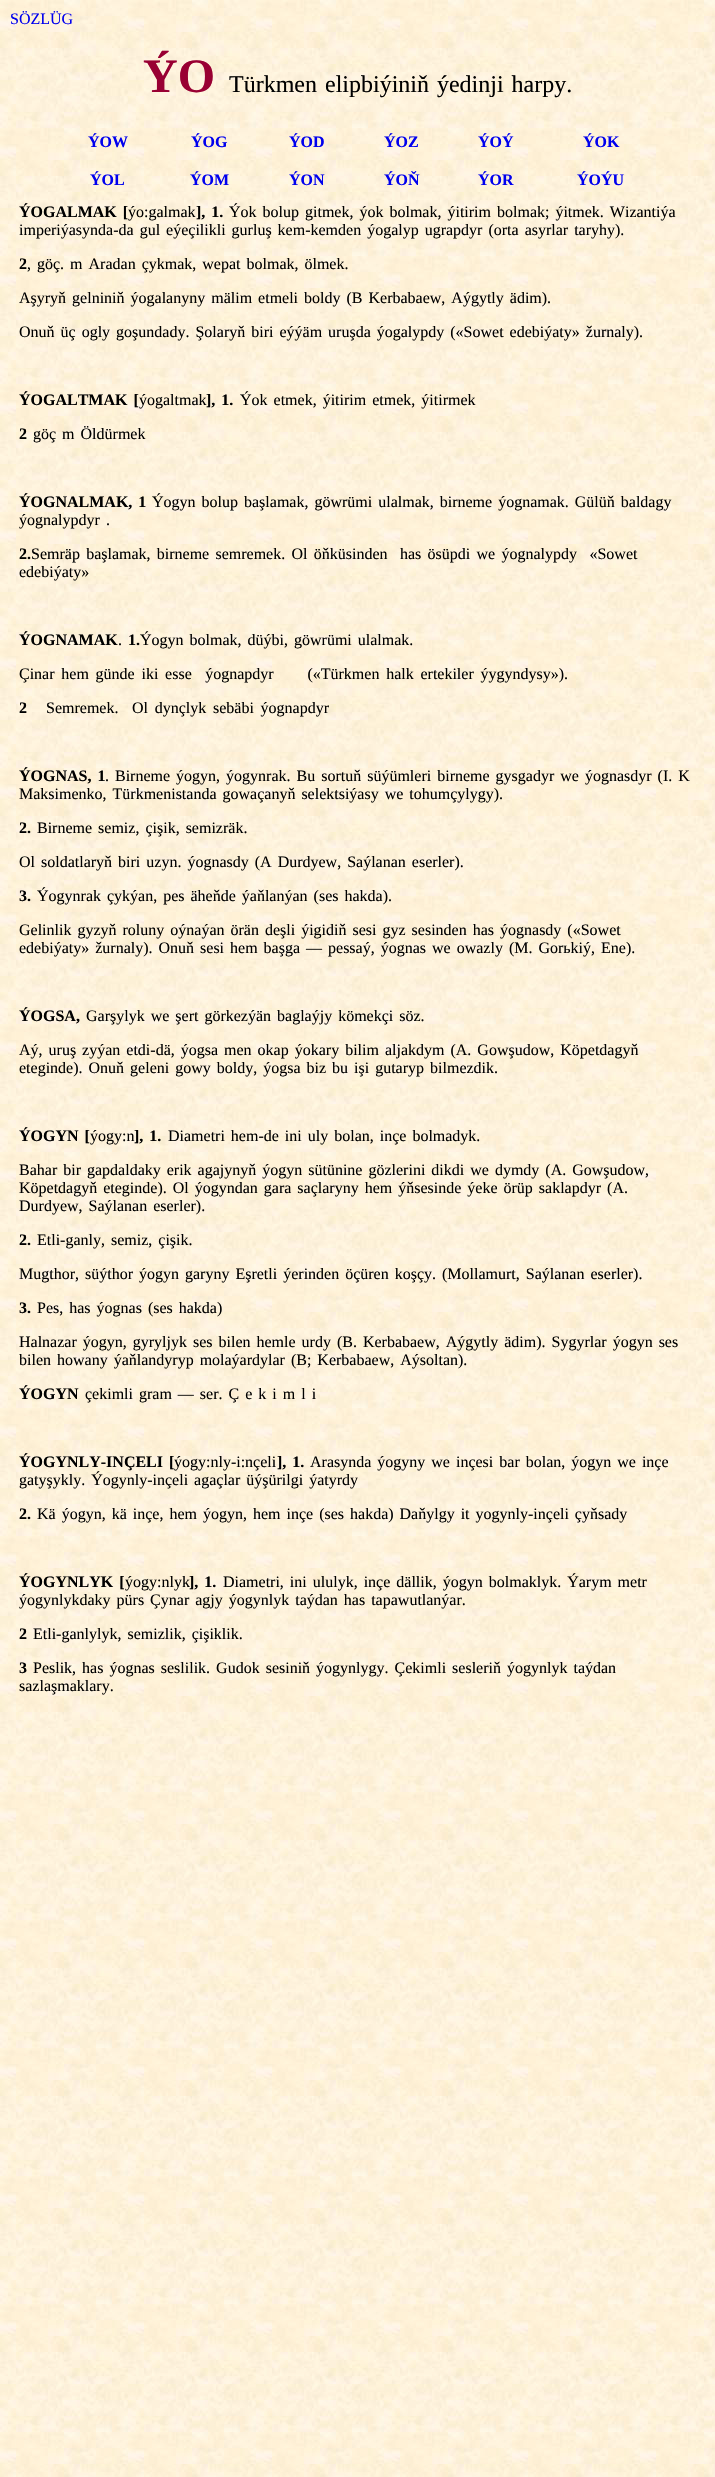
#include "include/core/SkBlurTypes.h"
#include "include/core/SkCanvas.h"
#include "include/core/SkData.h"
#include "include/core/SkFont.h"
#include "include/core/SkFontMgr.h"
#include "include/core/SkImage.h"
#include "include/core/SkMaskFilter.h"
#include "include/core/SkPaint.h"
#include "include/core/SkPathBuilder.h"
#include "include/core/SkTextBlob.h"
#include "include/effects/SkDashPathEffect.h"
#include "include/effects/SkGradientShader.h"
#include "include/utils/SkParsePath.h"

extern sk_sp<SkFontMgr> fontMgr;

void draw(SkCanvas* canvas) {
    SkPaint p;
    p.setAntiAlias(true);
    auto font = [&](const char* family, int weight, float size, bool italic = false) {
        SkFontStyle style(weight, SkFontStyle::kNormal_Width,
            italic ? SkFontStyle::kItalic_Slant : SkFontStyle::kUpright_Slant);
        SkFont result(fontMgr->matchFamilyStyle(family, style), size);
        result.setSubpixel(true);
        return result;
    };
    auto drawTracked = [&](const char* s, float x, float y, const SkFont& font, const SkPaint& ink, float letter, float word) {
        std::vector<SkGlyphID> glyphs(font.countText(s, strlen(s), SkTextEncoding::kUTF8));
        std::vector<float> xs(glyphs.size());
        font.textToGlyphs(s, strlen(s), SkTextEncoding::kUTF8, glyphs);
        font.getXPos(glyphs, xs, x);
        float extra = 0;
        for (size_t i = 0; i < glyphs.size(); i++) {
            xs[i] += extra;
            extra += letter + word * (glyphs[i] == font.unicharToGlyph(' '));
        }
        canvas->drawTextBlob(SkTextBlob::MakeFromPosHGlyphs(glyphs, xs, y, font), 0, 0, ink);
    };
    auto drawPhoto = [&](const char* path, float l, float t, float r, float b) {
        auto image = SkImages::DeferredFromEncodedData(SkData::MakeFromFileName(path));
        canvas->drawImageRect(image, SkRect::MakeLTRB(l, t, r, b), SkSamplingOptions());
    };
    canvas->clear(0xFFFFFFFF);
    drawPhoto("media/1.png", 0, 0, 715, 2477);
    auto font1 = font("Liberation Serif", 400, 16);
    p.setColor(0xFF0000EE);
    canvas->drawString("SÖZLÜG", 10, 24, font1, p);
    auto font2 = font("Liberation Serif", 700, 48);
    p.setColor(0xFF990033);
    canvas->drawString("ÝO", 143, 92, font2, p);
    auto font3 = font("Liberation Serif", 400, 24);
    p.setColor(0xFF000000);
    drawTracked("Türkmen elipbiýiniň ýedinji harpy.", 229, 92, font3, p, 0, 2);
    auto font4 = font("Liberation Serif", 700, 16);
    p.setColor(0xFF0000EE);
    {
        const struct { const char* s; float x, y; } items[] = {
            {"ÝOW", 88, 147},
            {"ÝOG", 191, 147},
            {"ÝOD", 289, 147},
            {"ÝOZ", 384, 147},
            {"ÝOÝ", 478, 147},
            {"ÝOK", 583, 147},
            {"ÝOL", 90, 185},
            {"ÝOM", 190, 185},
            {"ÝON", 289, 185},
            {"ÝOŇ", 384, 185},
            {"ÝOR", 478, 185},
            {"ÝOÝU", 577, 185},
        };
        for (auto [s, x, y] : items) {
            canvas->drawString(s, x, y, font4, p);
        }
    }
    p.setColor(0xFF000000);
    drawTracked("ÝOGALMAK [", 19, 217, font4, p, 0, 2);
    canvas->drawString("ýo:galmak", 128, 217, font1, p);
    drawTracked("], 1.", 196, 217, font4, p, 0, 2);
    drawTracked("Ýok bolup gitmek, ýok bolmak, ýitirim bolmak; ýitmek. Wizantiýa", 229, 217, font1, p, 0, 2);
    drawTracked("imperiýasynda-da gul eýeçilikli gurluş kem-kemden ýogalyp ugrapdyr (orta asyrlar taryhy).", 19, 235, font1, p, 0, 2);
    canvas->drawString("2", 19, 269, font4, p);
    {
        const struct { const char* s; float x, y; } items[] = {
            {", göç. m Aradan çykmak, wepat bolmak, ölmek.", 27, 269},
            {"Aşyryň gelniniň ýogalanyny mälim etmeli boldy (B Kerbabaew, Aýgytly ädim).", 19, 303},
            {"Onuň üç ogly goşundady. Şolaryň biri eýýäm uruşda ýogalypdy («Sowet edebiýaty» žurnaly).", 19, 337},
        };
        for (auto [s, x, y] : items) {
            drawTracked(s, x, y, font1, p, 0, 2);
        }
    }
    drawTracked("ÝOGALTMAK [", 19, 405, font4, p, 0, 2);
    canvas->drawString("ýogaltmak", 139, 405, font1, p);
    drawTracked("], 1.", 206, 405, font4, p, 0, 2);
    drawTracked("Ýok etmek, ýitirim etmek, ýitirmek", 240, 405, font1, p, 0, 2);
    canvas->drawString("2", 19, 439, font4, p);
    drawTracked("göç m Öldürmek", 33, 439, font1, p, 0, 2);
    drawTracked("ÝOGNALMAK, 1", 19, 507, font4, p, 0, 2);
    drawTracked("Ýogyn bolup başlamak, göwrümi ulalmak, birneme ýognamak. Gülüň baldagy", 152, 507, font1, p, 0, 2);
    drawTracked("ýognalypdyr .", 19, 525, font1, p, 0, 2);
    canvas->drawString("2.", 19, 559, font4, p);
    drawTracked("Semräp başlamak, birneme semremek. Ol öňküsinden  has ösüpdi we ýognalypdy  «Sowet", 31, 559, font1, p, 0, 2.25f);
    canvas->drawString("edebiýaty»", 19, 577, font1, p);
    canvas->drawString("ÝOGNAMAK", 19, 645, font4, p);
    canvas->drawString(".", 118, 645, font1, p);
    canvas->drawString("1.", 128, 645, font4, p);
    drawTracked("Ýogyn bolmak, düýbi, göwrümi ulalmak.", 140, 645, font1, p, 0, 2);
    drawTracked("Çinar hem günde iki esse  ýognapdyr     («Türkmen halk ertekiler ýygyndysy»).", 19, 679, font1, p, 0, 2.75f);
    canvas->drawString("2", 19, 713, font4, p);
    drawTracked("Semremek.  Ol dynçlyk sebäbi ýognapdyr", 46, 713, font1, p, 0, 2.75f);
    drawTracked("ÝOGNAS, 1", 19, 781, font4, p, 0, 2);
    drawTracked(". Birneme ýogyn, ýogynrak. Bu sortuň süýümleri birneme gysgadyr we ýognasdyr (I. K", 105, 781, font1, p, 0, 2);
    drawTracked("Maksimenko, Türkmenistanda gowaçanyň selektsiýasy we tohumçylygy).", 19, 799, font1, p, 0, 2);
    canvas->drawString("2.", 19, 833, font4, p);
    drawTracked("Birneme semiz, çişik, semizräk.", 37, 833, font1, p, 0, 2);
    drawTracked("Ol soldatlaryň biri uzyn. ýognasdy (A Durdyew, Saýlanan eserler).", 19, 867, font1, p, 0, 2);
    canvas->drawString("3.", 19, 901, font4, p);
    {
        const struct { const char* s; float x, y; } items[] = {
            {"Ýogynrak çykýan, pes äheňde ýaňlanýan (ses hakda).", 37, 901},
            {"Gelinlik gyzyň roluny oýnaýan örän deşli ýigidiň sesi gyz sesinden has ýognasdy («Sowet", 19, 935},
            {"edebiýaty» žurnaly). Onuň sesi hem başga — pessaý, ýognas we owazly (M. Gorьkiý, Ene).", 19, 953},
        };
        for (auto [s, x, y] : items) {
            drawTracked(s, x, y, font1, p, 0, 2);
        }
    }
    canvas->drawString("ÝOGSA,", 19, 1021, font4, p);
    {
        const struct { const char* s; float x, y; } items[] = {
            {"Garşylyk we şert görkezýän baglaýjy kömekçi söz.", 86, 1021},
            {"Aý, uruş zyýan etdi-dä, ýogsa men okap ýokary bilim aljakdym (A. Gowşudow, Köpetdagyň", 19, 1055},
            {"eteginde). Onuň geleni gowy boldy, ýogsa biz bu işi gutaryp bilmezdik.", 19, 1073},
        };
        for (auto [s, x, y] : items) {
            drawTracked(s, x, y, font1, p, 0, 2);
        }
    }
    drawTracked("ÝOGYN [", 19, 1141, font4, p, 0, 2);
    canvas->drawString("ýogy:n", 90, 1141, font1, p);
    drawTracked("], 1.", 134, 1141, font4, p, 0, 2);
    {
        const struct { const char* s; float x, y; } items[] = {
            {"Diametri hem-de ini uly bolan, inçe bolmadyk.", 168, 1141},
            {"Bahar bir gapdaldaky erik agajynyň ýogyn sütünine gözlerini dikdi we dymdy (A. Gowşudow,", 19, 1175},
            {"Köpetdagyň eteginde). Ol ýogyndan gara saçlaryny hem ýňsesinde ýeke örüp saklapdyr (A.", 19, 1193},
            {"Durdyew, Saýlanan eserler).", 19, 1211},
        };
        for (auto [s, x, y] : items) {
            drawTracked(s, x, y, font1, p, 0, 2);
        }
    }
    canvas->drawString("2.", 19, 1245, font4, p);
    drawTracked("Etli-ganly, semiz, çişik.", 37, 1245, font1, p, 0, 2);
    drawTracked("Mugthor, süýthor ýogyn garyny Eşretli ýerinden öçüren koşçy. (Mollamurt, Saýlanan eserler).", 19, 1279, font1, p, 0, 2);
    canvas->drawString("3.", 19, 1313, font4, p);
    {
        const struct { const char* s; float x, y; } items[] = {
            {"Pes, has ýognas (ses hakda)", 37, 1313},
            {"Halnazar ýogyn, gyryljyk ses bilen hemle urdy (B. Kerbabaew, Aýgytly ädim). Sygyrlar ýogyn ses", 19, 1347},
            {"bilen howany ýaňlandyryp molaýardylar (B; Kerbabaew, Aýsoltan).", 19, 1365},
        };
        for (auto [s, x, y] : items) {
            drawTracked(s, x, y, font1, p, 0, 2);
        }
    }
    canvas->drawString("ÝOGYN", 19, 1399, font4, p);
    drawTracked("çekimli gram — ser. Ç e k i m l i", 85, 1399, font1, p, 0, 2);
    drawTracked("ÝOGYNLY-INÇELI [", 19, 1467, font4, p, 0, 2);
    canvas->drawString("ýogy:nly-i:nçeli", 174, 1467, font1, p);
    drawTracked("], 1.", 277, 1467, font4, p, 0, 2);
    drawTracked("Arasynda ýogyny we inçesi bar bolan, ýogyn we inçe", 310, 1467, font1, p, 0, 2);
    drawTracked("gatyşykly. Ýogynly-inçeli agaçlar üýşürilgi ýatyrdy", 19, 1485, font1, p, 0, 2);
    canvas->drawString("2.", 19, 1519, font4, p);
    drawTracked("Kä ýogyn, kä inçe, hem ýogyn, hem inçe (ses hakda) Daňylgy it yogynly-inçeli çyňsady", 37, 1519, font1, p, 0, 2);
    drawTracked("ÝOGYNLYK [", 19, 1587, font4, p, 0, 2);
    canvas->drawString("ýogy:nlyk", 125, 1587, font1, p);
    drawTracked("], 1.", 189, 1587, font4, p, 0, 2);
    drawTracked("Diametri, ini ululyk, inçe dällik, ýogyn bolmaklyk. Ýarym metr", 223, 1587, font1, p, 0, 2);
    drawTracked("ýogynlykdaky pürs Çynar agjy ýogynlyk taýdan has tapawutlanýar.", 19, 1605, font1, p, 0, 2);
    canvas->drawString("2", 19, 1639, font4, p);
    drawTracked("Etli-ganlylyk, semizlik, çişiklik.", 33, 1639, font1, p, 0, 2);
    canvas->drawString("3", 19, 1673, font4, p);
    drawTracked("Peslik, has ýognas seslilik. Gudok sesiniň ýogynlygy. Çekimli sesleriň ýogynlyk taýdan", 33, 1673, font1, p, 0, 2);
    canvas->drawString("sazlaşmaklary.", 19, 1691, font1, p);
}
